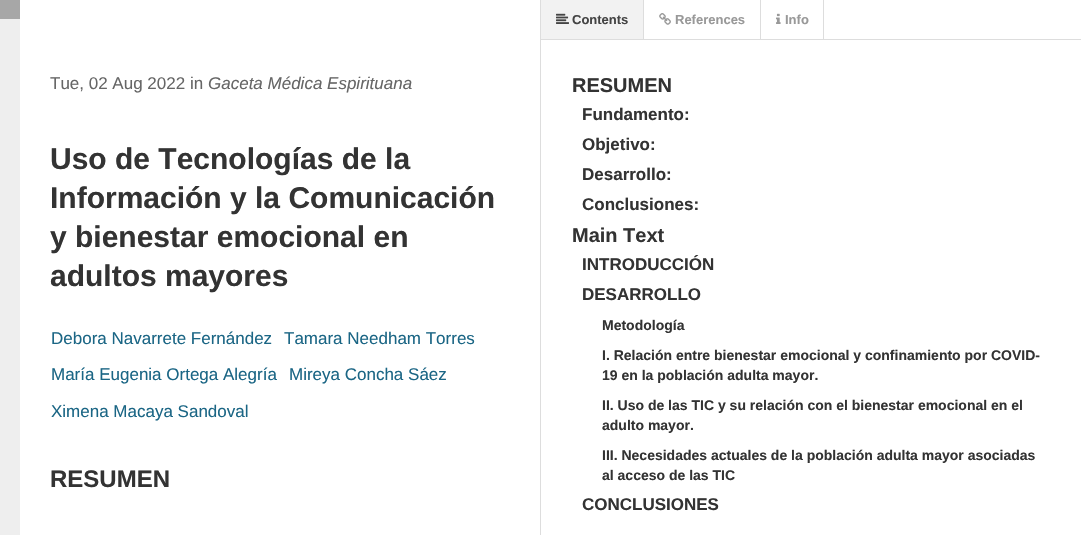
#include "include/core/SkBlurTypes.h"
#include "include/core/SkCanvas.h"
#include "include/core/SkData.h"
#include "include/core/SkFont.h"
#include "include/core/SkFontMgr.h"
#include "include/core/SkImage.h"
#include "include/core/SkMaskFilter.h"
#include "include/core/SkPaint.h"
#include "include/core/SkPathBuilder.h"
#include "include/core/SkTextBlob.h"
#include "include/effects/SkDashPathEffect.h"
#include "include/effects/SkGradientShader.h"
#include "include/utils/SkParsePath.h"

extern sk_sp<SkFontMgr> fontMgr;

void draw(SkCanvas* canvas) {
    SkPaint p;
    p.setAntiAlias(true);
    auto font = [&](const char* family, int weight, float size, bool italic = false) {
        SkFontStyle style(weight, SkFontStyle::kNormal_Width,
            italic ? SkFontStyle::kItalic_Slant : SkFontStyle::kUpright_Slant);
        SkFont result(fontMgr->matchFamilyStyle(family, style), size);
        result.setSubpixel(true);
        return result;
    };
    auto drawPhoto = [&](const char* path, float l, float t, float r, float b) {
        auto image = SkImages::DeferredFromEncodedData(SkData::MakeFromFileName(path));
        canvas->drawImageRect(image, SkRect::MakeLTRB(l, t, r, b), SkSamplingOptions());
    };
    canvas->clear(0xFFFFFFFF);
    {
        const struct { float l, t, r, b; SkColor color; } items[] = {
            {540, 0, 541, 535, 0xFFDDDDDD},
            {0, 19, 20, 535, 0xFFEEEEEE},
            {0, 0, 20, 19, 0xFFA7A7A7},
        };
        for (auto [l, t, r, b, color] : items) {
            p.setColor(color);
            canvas->drawRect(SkRect::MakeLTRB(l, t, r, b), p);
        }
    }
    auto font1 = font("Liberation Sans", 400, 17);
    p.setColor(0xFF666666);
    canvas->drawString("Tue, 02 Aug 2022 in", 50, 89, font1, p);
    auto font2 = font("Liberation Sans", 400, 17, true);
    canvas->drawString("Gaceta Médica Espirituana", 208, 89, font2, p);
    auto font3 = font("Liberation Sans", 700, 30);
    p.setColor(0xFF333333);
    {
        const struct { const char* s; float x, y; } items[] = {
            {"Uso de Tecnologías de la", 50, 169},
            {"Información y la Comunicación", 50, 208},
            {"y bienestar emocional en", 50, 247},
            {"adultos mayores", 50, 286},
        };
        for (auto [s, x, y] : items) {
            canvas->drawString(s, x, y, font3, p);
        }
    }
    p.setColor(0xFF1B6685);
    {
        const struct { const char* s; float x, y; } items[] = {
            {"Debora Navarrete Fernández", 51, 344},
            {"Tamara Needham Torres", 284, 344},
            {"María Eugenia Ortega Alegría", 51, 380},
            {"Mireya Concha Sáez", 289, 380},
            {"Ximena Macaya Sandoval", 51, 417},
        };
        for (auto [s, x, y] : items) {
            canvas->drawString(s, x, y, font1, p);
        }
    }
    auto font4 = font("Liberation Sans", 700, 24);
    p.setColor(0xFF333333);
    canvas->drawString("RESUMEN", 50, 487, font4, p);
    p.setColor(0xFFDDDDDD);
    canvas->drawRect(SkRect::MakeLTRB(541, 39, 1081, 40), p);
    p.setColor(0xFFF2F2F2);
    canvas->drawRect(SkRect::MakeLTRB(541, 0, 643, 39), p);
    canvas->save();
    canvas->clipRect(SkRect::MakeLTRB(541, 0, 1081, 39));
    p.setColor(0xFFDDDDDD);
    canvas->drawPath(SkPathBuilder().moveTo(644, 0).lineTo(644, 43).lineTo(643, 40).lineTo(643, 0).close().detach(), p);
    canvas->restore();
    drawPhoto("media/1.png", 556, 13, 569, 24);
    auto font5 = font("Liberation Sans", 700, 13);
    p.setColor(0xFF444444);
    canvas->drawString("Contents", 572, 24, font5, p);
    p.setColor(0xFFDDDDDD);
    canvas->drawRect(SkRect::MakeLTRB(760, 0, 761, 39), p);
    drawPhoto("media/2.png", 659, 13, 671, 25);
    p.setColor(0xFF999999);
    canvas->drawString("References", 675, 24, font5, p);
    p.setColor(0xFFDDDDDD);
    canvas->drawRect(SkRect::MakeLTRB(823, 0, 824, 39), p);
    drawPhoto("media/3.png", 776, 13, 781, 24);
    p.setColor(0xFF999999);
    canvas->drawString("Info", 785, 24, font5, p);
    auto font6 = font("Liberation Sans", 700, 20);
    p.setColor(0xFF333333);
    canvas->drawString("RESUMEN", 572, 92, font6, p);
    auto font7 = font("Liberation Sans", 700, 17);
    {
        const struct { const char* s; float x, y; } items[] = {
            {"Fundamento:", 582, 120},
            {"Objetivo:", 582, 150},
            {"Desarrollo:", 582, 180},
            {"Conclusiones:", 582, 210},
        };
        for (auto [s, x, y] : items) {
            canvas->drawString(s, x, y, font7, p);
        }
    }
    canvas->drawString("Main Text", 572, 242, font6, p);
    canvas->drawString("INTRODUCCIÓN", 582, 270, font7, p);
    canvas->drawString("DESARROLLO", 582, 300, font7, p);
    auto font8 = font("Liberation Sans", 700, 14);
    {
        const struct { const char* s; float x, y; } items[] = {
            {"Metodología", 602, 330},
            {"I. Relación entre bienestar emocional y confinamiento por COVID-", 602, 360},
            {"19 en la población adulta mayor.", 602, 380},
            {"II. Uso de las TIC y su relación con el bienestar emocional en el", 602, 410},
            {"adulto mayor.", 602, 430},
            {"III. Necesidades actuales de la población adulta mayor asociadas", 602, 460},
            {"al acceso de las TIC", 602, 480},
        };
        for (auto [s, x, y] : items) {
            canvas->drawString(s, x, y, font8, p);
        }
    }
    canvas->drawString("CONCLUSIONES", 582, 510, font7, p);
}
